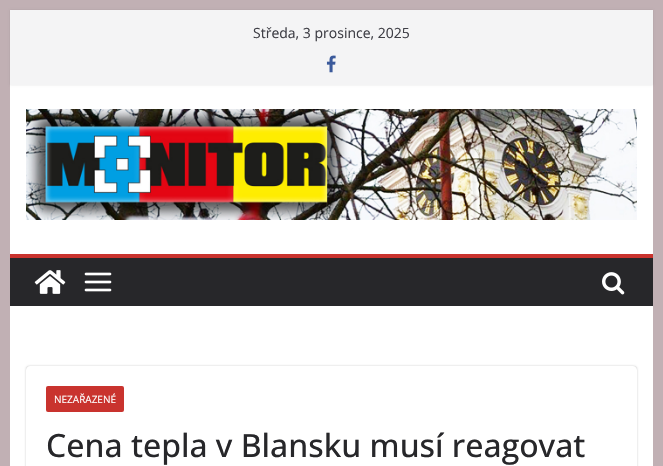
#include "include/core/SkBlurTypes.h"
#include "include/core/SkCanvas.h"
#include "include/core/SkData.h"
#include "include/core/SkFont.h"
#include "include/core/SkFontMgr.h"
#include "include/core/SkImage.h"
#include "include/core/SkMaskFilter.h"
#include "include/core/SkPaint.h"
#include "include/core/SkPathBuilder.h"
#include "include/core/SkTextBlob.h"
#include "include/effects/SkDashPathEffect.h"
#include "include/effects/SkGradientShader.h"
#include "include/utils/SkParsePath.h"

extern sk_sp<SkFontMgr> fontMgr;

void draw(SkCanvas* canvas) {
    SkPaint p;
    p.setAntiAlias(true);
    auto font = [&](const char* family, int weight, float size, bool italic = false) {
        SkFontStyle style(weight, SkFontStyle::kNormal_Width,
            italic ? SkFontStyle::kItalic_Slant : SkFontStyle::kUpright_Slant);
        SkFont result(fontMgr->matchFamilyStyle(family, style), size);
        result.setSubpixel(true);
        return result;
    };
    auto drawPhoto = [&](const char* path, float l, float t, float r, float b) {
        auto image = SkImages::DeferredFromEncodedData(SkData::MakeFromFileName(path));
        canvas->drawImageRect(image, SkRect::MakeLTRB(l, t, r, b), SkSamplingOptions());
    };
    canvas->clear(0xFFC1B0B4);
    p.setColor(0xFFFFFFFF);
    canvas->drawRect(SkRect::MakeLTRB(10, 85, 653, 254), p);
    p.setColor(0x1A000000);
    p.setMaskFilter(SkMaskFilter::MakeBlur(kNormal_SkBlurStyle, 1));
    canvas->drawRect(SkRect::MakeLTRB(10, 10, 653, 85), p);
    p.setMaskFilter(nullptr);
    p.setColor(0xFFF4F4F5);
    canvas->drawRect(SkRect::MakeLTRB(10, 10, 653, 85), p);
    auto font1 = font("Open Sans", 400, 14);
    p.setColor(0xFF3F3F46);
    canvas->drawString("Středa, 3 prosince, 2025", 253, 38, font1, p);
    drawPhoto("media/1.png", 326, 55, 336, 73);
    drawPhoto("media/2.png", 26, 109, 637, 220);
    p.setColor(0xFF27272A);
    canvas->drawRect(SkRect::MakeLTRB(10, 258, 653, 306), p);
    p.setColor(0xFFC9332E);
    canvas->drawRect(SkRect::MakeLTRB(10, 254, 653, 258), p);
    drawPhoto("media/3.png", 34, 270, 66, 294);
    drawPhoto("media/4.png", 84, 272, 112, 292);
    drawPhoto("media/5.png", 602, 272, 625, 295);
    p.setColor(0xFFFFFFFF);
    canvas->drawRect(SkRect::MakeLTRB(10, 306, 653, 466), p);
    canvas->save();
    canvas->clipPath(SkPathBuilder(SkPathFillType::kEvenOdd).moveTo(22, 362).lineTo(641, 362).lineTo(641, 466).lineTo(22, 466).close().moveTo(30, 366).lineTo(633, 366).cubicTo(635, 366, 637, 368, 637, 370).lineTo(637, 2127).cubicTo(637, 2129, 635, 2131, 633, 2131).lineTo(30, 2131).cubicTo(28, 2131, 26, 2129, 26, 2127).lineTo(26, 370).cubicTo(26, 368, 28, 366, 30, 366).close().detach(), true);
    p.setColor(0x3D000000);
    p.setMaskFilter(SkMaskFilter::MakeBlur(kNormal_SkBlurStyle, 1));
    canvas->drawRoundRect(SkRect::MakeLTRB(26, 366, 637, 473), 4, 4, p);
    p.setMaskFilter(nullptr);
    canvas->restore();
    p.setColor(0xFFC9332E);
    canvas->drawRoundRect(SkRect::MakeLTRB(46, 386, 124, 412), 2, 2, p);
    auto font2 = font("Open Sans", 400, 10);
    p.setColor(0xFFFFFFFF);
    canvas->drawString("NEZAŘAZENÉ", 54, 403, font2, p);
    auto font3 = font("Open Sans", 500, 32);
    p.setColor(0xFF27272A);
    canvas->drawString("Cena tepla v Blansku musí reagovat", 46, 457, font3, p);
}
